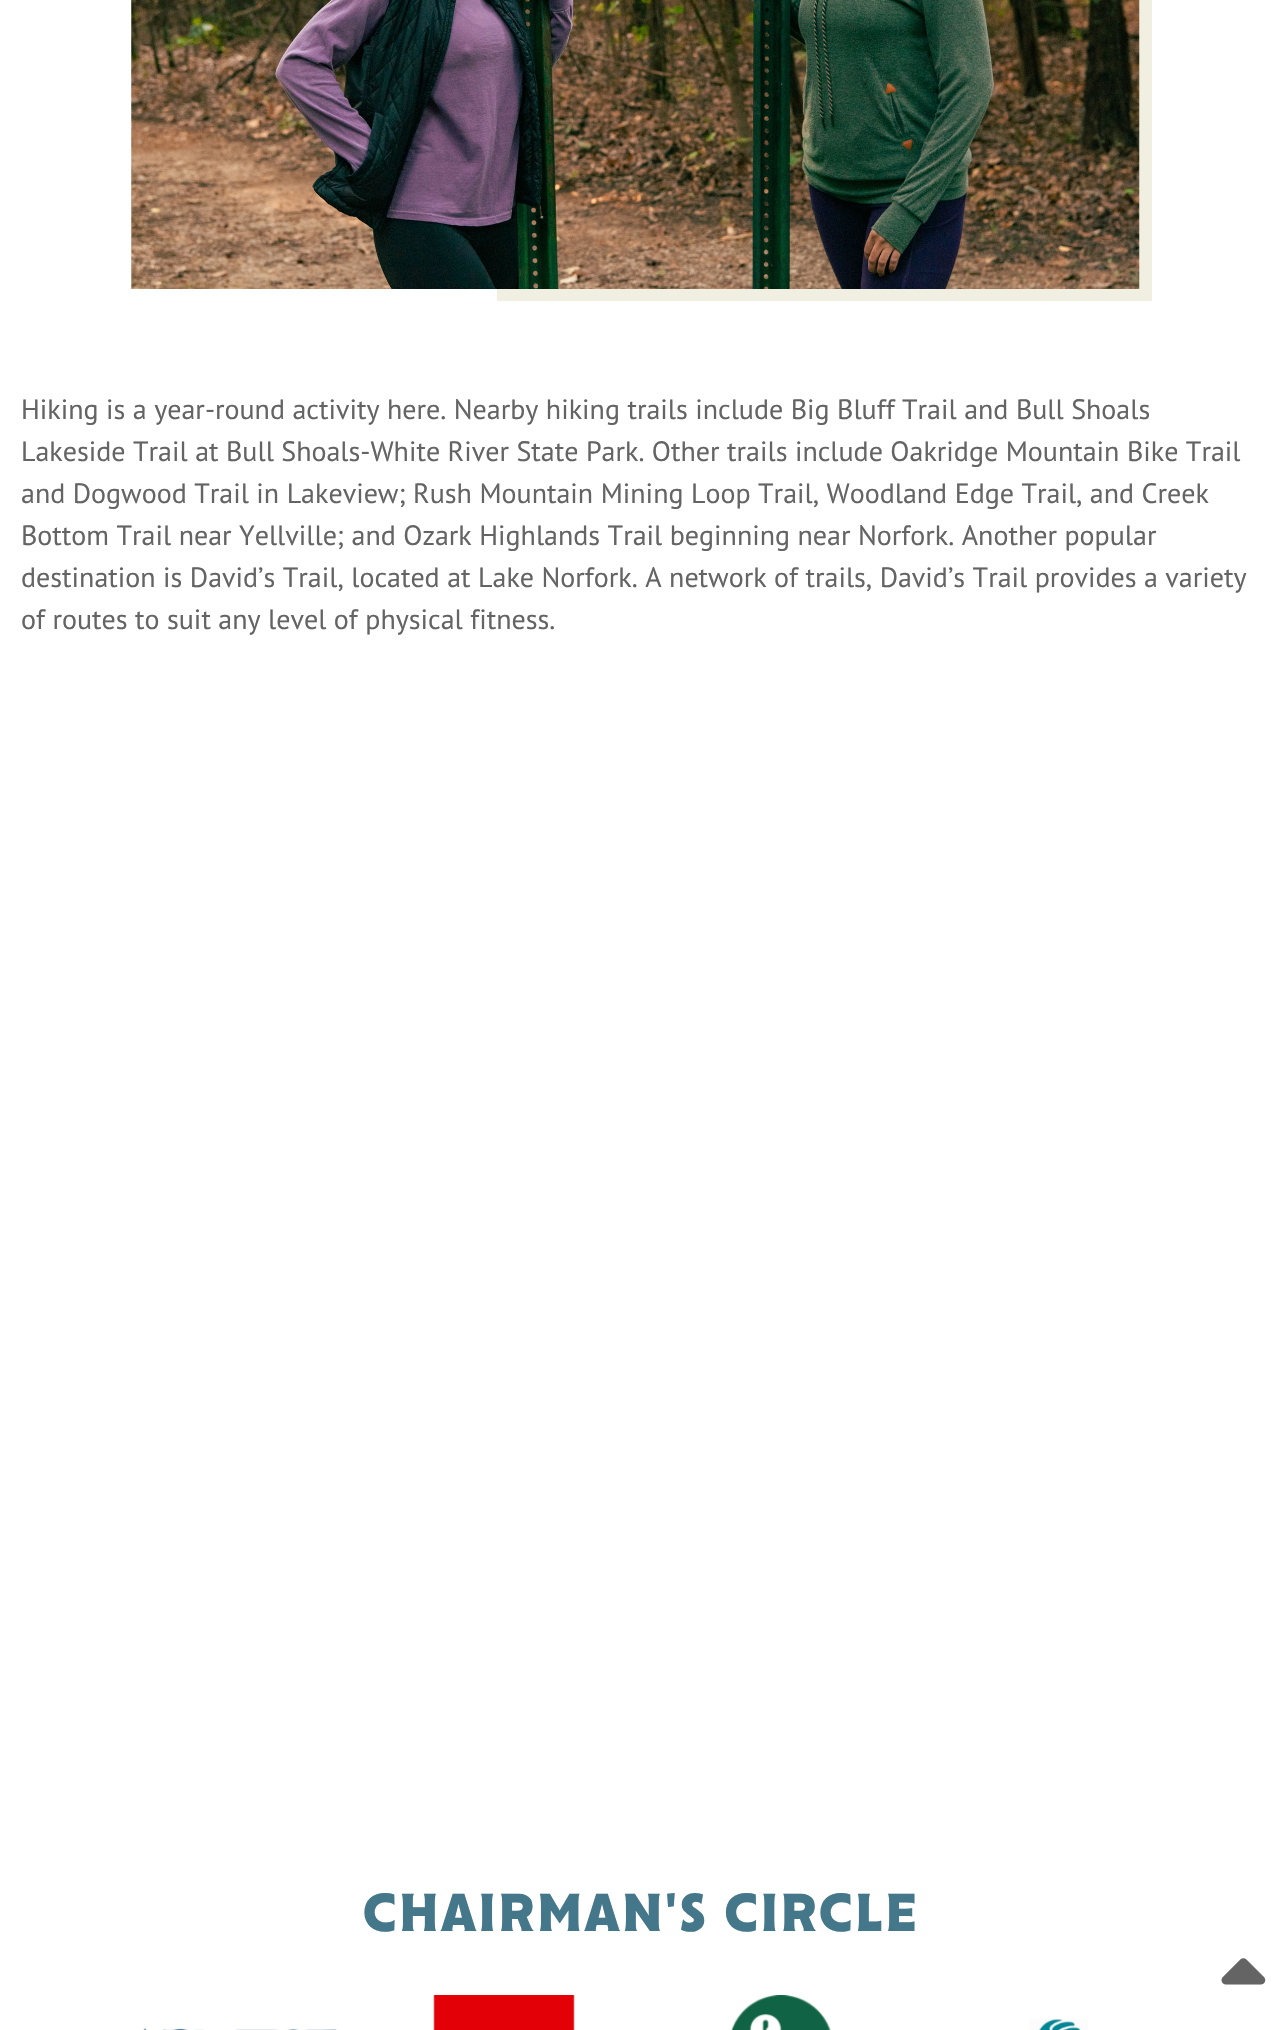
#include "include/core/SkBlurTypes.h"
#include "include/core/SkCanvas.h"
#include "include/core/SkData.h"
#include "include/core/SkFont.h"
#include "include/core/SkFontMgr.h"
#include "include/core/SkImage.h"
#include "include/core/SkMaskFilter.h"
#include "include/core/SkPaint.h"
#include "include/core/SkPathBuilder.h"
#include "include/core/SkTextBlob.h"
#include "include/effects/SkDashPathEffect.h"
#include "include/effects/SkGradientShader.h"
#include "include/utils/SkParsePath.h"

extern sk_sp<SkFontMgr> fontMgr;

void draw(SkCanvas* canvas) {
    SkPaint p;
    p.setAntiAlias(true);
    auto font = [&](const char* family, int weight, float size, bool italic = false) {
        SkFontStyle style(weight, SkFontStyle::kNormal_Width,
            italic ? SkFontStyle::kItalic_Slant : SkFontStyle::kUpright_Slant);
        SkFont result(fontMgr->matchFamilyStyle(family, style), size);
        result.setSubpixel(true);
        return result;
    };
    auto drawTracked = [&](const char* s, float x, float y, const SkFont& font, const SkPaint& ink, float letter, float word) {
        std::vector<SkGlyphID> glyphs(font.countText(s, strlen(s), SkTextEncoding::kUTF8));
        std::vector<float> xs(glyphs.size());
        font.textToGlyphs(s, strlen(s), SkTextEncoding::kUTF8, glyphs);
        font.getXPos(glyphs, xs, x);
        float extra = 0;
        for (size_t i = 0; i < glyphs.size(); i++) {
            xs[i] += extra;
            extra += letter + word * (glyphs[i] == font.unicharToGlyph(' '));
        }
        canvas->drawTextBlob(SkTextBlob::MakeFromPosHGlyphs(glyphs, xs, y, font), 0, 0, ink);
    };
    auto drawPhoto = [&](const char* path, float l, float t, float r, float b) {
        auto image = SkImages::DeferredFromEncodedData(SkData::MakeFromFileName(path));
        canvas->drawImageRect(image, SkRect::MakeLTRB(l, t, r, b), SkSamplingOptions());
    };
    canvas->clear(0xFFFFFFFF);
    p.setColor(0xFFF0EFE1);
    canvas->drawRect(SkRect::MakeLTRB(497, 0, 1152, 301), p);
    drawPhoto("media/1.png", 131, 0, 1140, 289);
    auto font1 = font("PT Sans", 400, 28);
    p.setColor(0xFF646464);
    {
        const struct { const char* s; float x, y; } items[] = {
            {"Hiking is a year-round activity here. Nearby hiking trails include Big Bluff Trail and Bull Shoals", 21, 419},
            {"Lakeside Trail at Bull Shoals-White River State Park. Other trails include Oakridge Mountain Bike Trail", 21, 461},
            {"and Dogwood Trail in Lakeview; Rush Mountain Mining Loop Trail, Woodland Edge Trail, and Creek", 21, 503},
            {"Bottom Trail near Yellville; and Ozark Highlands Trail beginning near Norfork. Another popular", 21, 545},
            {"destination is David’s Trail, located at Lake Norfork. A network of trails, David’s Trail provides a variety", 21, 587},
            {"of routes to suit any level of physical fitness.", 21, 629},
        };
        for (auto [s, x, y] : items) {
            canvas->drawString(s, x, y, font1, p);
        }
    }
    auto font2 = font("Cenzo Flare", 700, 59.5f);
    p.setColor(0xFF45778A);
    drawTracked("CHAIRMAN'S CIRCLE", 363, 1931, font2, p, 1.75f, 0);
    drawPhoto("media/2.png", 143, 2028, 337, 2030);
    drawPhoto("media/3.png", 433, 1995, 575, 2030);
    drawPhoto("media/4.png", 731, 1995, 831, 2030);
    drawPhoto("media/5.png", 1029, 2019, 1088, 2030);
    drawPhoto("media/6.png", 1221, 1958, 1266, 1985);
}
